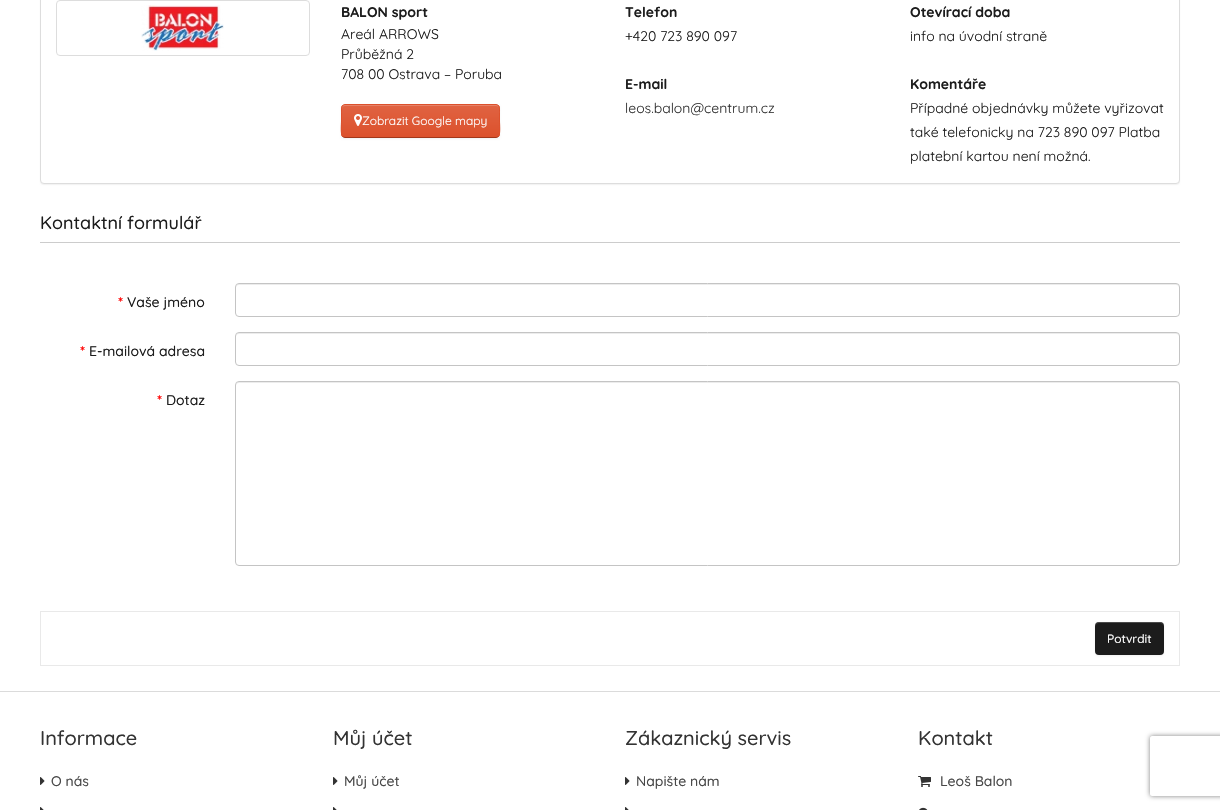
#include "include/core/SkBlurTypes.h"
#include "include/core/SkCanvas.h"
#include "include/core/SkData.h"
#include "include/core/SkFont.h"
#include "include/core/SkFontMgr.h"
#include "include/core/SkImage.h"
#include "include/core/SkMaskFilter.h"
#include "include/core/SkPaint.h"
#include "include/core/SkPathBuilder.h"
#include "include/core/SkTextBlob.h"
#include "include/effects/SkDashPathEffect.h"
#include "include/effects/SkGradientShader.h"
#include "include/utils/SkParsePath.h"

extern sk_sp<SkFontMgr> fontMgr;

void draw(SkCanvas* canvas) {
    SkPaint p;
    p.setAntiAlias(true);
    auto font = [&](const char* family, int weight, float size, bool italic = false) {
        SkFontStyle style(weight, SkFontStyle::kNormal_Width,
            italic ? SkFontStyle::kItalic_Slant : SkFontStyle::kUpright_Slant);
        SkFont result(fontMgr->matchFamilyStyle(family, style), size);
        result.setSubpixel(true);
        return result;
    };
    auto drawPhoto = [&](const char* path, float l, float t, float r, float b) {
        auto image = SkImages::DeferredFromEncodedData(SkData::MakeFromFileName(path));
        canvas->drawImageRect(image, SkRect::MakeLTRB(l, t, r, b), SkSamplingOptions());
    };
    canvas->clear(0xFFFFFFFF);
    p.setColor(0x0D000000);
    p.setMaskFilter(SkMaskFilter::MakeBlur(kNormal_SkBlurStyle, 0.5f));
    canvas->drawRoundRect(SkRect::MakeLTRB(40, -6, 1180, 185), 4, 4, p);
    p.setMaskFilter(nullptr);
    p.setColor(0xFFFFFFFF);
    canvas->drawRoundRect(SkRect::MakeLTRB(40.5f, -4.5f, 1179.5f, 183.5f), 3.5f, 3.5f, p);
    p.setStyle(SkPaint::kStroke_Style);
    p.setStrokeWidth(1);
    p.setColor(0xFFDDDDDD);
    canvas->drawRoundRect(SkRect::MakeLTRB(40.5f, -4.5f, 1179.5f, 183.5f), 3.5f, 3.5f, p);
    canvas->drawRoundRect(SkRect::MakeLTRB(56.5f, 0.5f, 309.5f, 55.5f), 3.5f, 3.5f, p);
    drawPhoto("media/1.png", 141, 5, 224, 51);
    auto font1 = font("Quicksand", 700, 14);
    p.setStyle(SkPaint::kFill_Style);
    p.setColor(0xFF1C1C1C);
    canvas->drawString("BALON sport", 341, 17, font1, p);
    auto font2 = font("Quicksand", 400, 14);
    {
        const struct { const char* s; float x, y; } items[] = {
            {"Areál ARROWS", 341, 39},
            {"Průběžná 2", 341, 59},
            {"708 00 Ostrava – Poruba", 341, 79},
        };
        for (auto [s, x, y] : items) {
            canvas->drawString(s, x, y, font2, p);
        }
    }
    p.setColor(0x0D000000);
    p.setMaskFilter(SkMaskFilter::MakeBlur(kNormal_SkBlurStyle, 1));
    canvas->drawRoundRect(SkRect::MakeLTRB(341, 105, 500, 139), 4, 4, p);
    p.setMaskFilter(nullptr);
    canvas->save();
    canvas->clipPath(SkPathBuilder().moveTo(345, 104).lineTo(496, 104).cubicTo(498, 104, 500, 106, 500, 108).lineTo(500, 134).cubicTo(500, 136, 498, 138, 496, 138).lineTo(345, 138).cubicTo(343, 138, 341, 136, 341, 134).lineTo(341, 108).cubicTo(341, 106, 343, 104, 345, 104).close().detach(), true);
    {
        const SkColor colors[] = {0xFFE06342, 0xFFDC512C};
        const float stops[] = {0, 1};
        const SkPoint ends[] = {{421, 105}, {421, 137}};
        p.setShader(SkGradientShader::MakeLinear(ends, colors, stops, 2, SkTileMode::kClamp));
        p.setAlpha(255);
    }
    canvas->drawRect(SkRect::MakeLTRB(341, 105, 500, 137), p);
    canvas->restore();
    p.setShader(nullptr);
    p.setColor(0xFFE68268);
    canvas->drawPath(SkPathBuilder().moveTo(345, 106).lineTo(496, 106).cubicTo(498, 106, 499, 107, 499, 109).cubicTo(499, 107, 498, 105, 496, 105).lineTo(344, 105).cubicTo(342, 105, 342, 107, 342, 109).cubicTo(342, 107, 343, 106, 345, 106).close().detach(), p);
    p.setStyle(SkPaint::kStroke_Style);
    p.setColor(0xFFA2371A);
    canvas->drawPath(SkPathBuilder().moveTo(498.5f, 136.5f).cubicTo(498, 137, 497, 137.5f, 496, 137.5f).lineTo(345, 137.5f).cubicTo(344, 137.5f, 343, 137, 342.5f, 136.5f).detach(), p);
    p.setColor(0xFFDC512C);
    canvas->drawPath(SkPathBuilder().moveTo(342.5f, 136.5f).cubicTo(340.5f, 134, 341.5f, 124, 341.5f, 121).lineTo(341.5f, 112.5f).cubicTo(341.5f, 109.5f, 341, 104.5f, 345, 104.5f).lineTo(496, 104.5f).cubicTo(500, 104.5f, 499.5f, 109.5f, 499.5f, 112.5f).lineTo(499.5f, 121).cubicTo(499.5f, 124, 500.5f, 134, 498.5f, 136.5f).detach(), p);
    drawPhoto("media/2.png", 354, 114, 362, 126);
    auto font3 = font("Quicksand", 400, 12);
    p.setStyle(SkPaint::kFill_Style);
    p.setColor(0xFFFFFFFF);
    canvas->drawString("Zobrazit Google mapy", 362, 125, font3, p);
    p.setColor(0xFF1C1C1C);
    canvas->drawString("Telefon", 625, 17, font1, p);
    canvas->drawString("+420 723 890 097", 625, 41, font2, p);
    canvas->drawString("E-mail", 625, 89, font1, p);
    p.setColor(0xFF333333);
    canvas->drawString("leos.balon@centrum.cz", 625, 113, font2, p);
    p.setColor(0xFF1C1C1C);
    canvas->drawString("Otevírací doba", 910, 17, font1, p);
    canvas->drawString("info na úvodní straně", 910, 41, font2, p);
    canvas->drawString("Komentáře", 910, 89, font1, p);
    {
        const struct { const char* s; float x, y; } items[] = {
            {"Případné objednávky můžete vyřizovat", 910, 113},
            {"také telefonicky na 723 890 097 Platba", 910, 137},
            {"platební kartou není možná.", 910, 161},
        };
        for (auto [s, x, y] : items) {
            canvas->drawString(s, x, y, font2, p);
        }
    }
    p.setColor(0xFFCCCCCC);
    canvas->drawRect(SkRect::MakeLTRB(40, 242, 1180, 243), p);
    auto font4 = font("Quicksand", 500, 18);
    p.setColor(0xFF1C1C1C);
    canvas->drawString("Kontaktní formulář", 40, 229, font4, p);
    p.setColor(0xFFFF0000);
    canvas->drawString("*", 118, 307, font1, p);
    auto font5 = font("Quicksand", 500, 14);
    p.setColor(0xFF1C1C1C);
    canvas->drawString("Vaše jméno", 127, 307, font5, p);
    p.setColor(0xFFECECEC);
    canvas->drawPath(SkPathBuilder().moveTo(239, 285).lineTo(1176, 285).cubicTo(1178, 285, 1179, 286, 1179, 288).cubicTo(1179, 286, 1178, 284, 1176, 284).lineTo(239, 284).cubicTo(237, 284, 236, 286, 236, 288).cubicTo(236, 286, 237, 285, 239, 285).close().detach(), p);
    p.setStyle(SkPaint::kStroke_Style);
    p.setColor(0xFFC4C4C4);
    canvas->drawRoundRect(SkRect::MakeLTRB(235.5f, 283.5f, 1179.5f, 316.5f), 3.5f, 3.5f, p);
    p.setStyle(SkPaint::kFill_Style);
    p.setColor(0xFFFF0000);
    canvas->drawString("*", 80, 356, font1, p);
    p.setColor(0xFF1C1C1C);
    canvas->drawString("E-mailová adresa", 89, 356, font5, p);
    p.setColor(0xFFECECEC);
    canvas->drawPath(SkPathBuilder().moveTo(239, 334).lineTo(1176, 334).cubicTo(1178, 334, 1179, 335, 1179, 337).cubicTo(1179, 335, 1178, 333, 1176, 333).lineTo(239, 333).cubicTo(237, 333, 236, 335, 236, 337).cubicTo(236, 335, 237, 334, 239, 334).close().detach(), p);
    p.setStyle(SkPaint::kStroke_Style);
    p.setColor(0xFFC4C4C4);
    canvas->drawRoundRect(SkRect::MakeLTRB(235.5f, 332.5f, 1179.5f, 365.5f), 3.5f, 3.5f, p);
    p.setStyle(SkPaint::kFill_Style);
    p.setColor(0xFFFF0000);
    canvas->drawString("*", 157, 405, font1, p);
    p.setColor(0xFF1C1C1C);
    canvas->drawString("Dotaz", 166, 405, font5, p);
    p.setColor(0xFFECECEC);
    canvas->drawPath(SkPathBuilder().moveTo(239, 383).lineTo(1176, 383).cubicTo(1178, 383, 1179, 384, 1179, 386).cubicTo(1179, 384, 1178, 382, 1176, 382).lineTo(239, 382).cubicTo(237, 382, 236, 384, 236, 386).cubicTo(236, 384, 237, 383, 239, 383).close().detach(), p);
    p.setStyle(SkPaint::kStroke_Style);
    p.setColor(0xFFC4C4C4);
    canvas->drawRoundRect(SkRect::MakeLTRB(235.5f, 381.5f, 1179.5f, 565.5f), 3.5f, 3.5f, p);
    p.setColor(0xFFE9E9E9);
    canvas->drawRect(SkRect::MakeLTRB(40.5f, 611.5f, 1179.5f, 665.5f), p);
    p.setStyle(SkPaint::kFill_Style);
    p.setColor(0x0D000000);
    p.setMaskFilter(SkMaskFilter::MakeBlur(kNormal_SkBlurStyle, 1));
    canvas->drawRoundRect(SkRect::MakeLTRB(1095, 623, 1164, 656), 4, 4, p);
    p.setMaskFilter(nullptr);
    p.setColor(0xFF1C1C1C);
    canvas->drawRoundRect(SkRect::MakeLTRB(1095, 622, 1164, 655), 4, 4, p);
    p.setColor(0x33FFFFFF);
    canvas->drawPath(SkPathBuilder().moveTo(1099, 623).lineTo(1160, 623).cubicTo(1162, 623, 1164, 625, 1164, 627).cubicTo(1164, 620, 1155, 622, 1150, 622).lineTo(1109, 622).cubicTo(1104, 622, 1095, 620, 1095, 627).cubicTo(1095, 625, 1097, 623, 1099, 623).close().detach(), p);
    auto font6 = font("Quicksand", 500, 12);
    p.setColor(0xFFFFFFFF);
    canvas->drawString("Potvrdit", 1107, 643, font6, p);
    canvas->save();
    canvas->clipPath(SkPathBuilder(SkPathFillType::kEvenOdd).moveTo(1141, 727).lineTo(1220, 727).lineTo(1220, 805).lineTo(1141, 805).close().moveTo(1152, 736).lineTo(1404, 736).cubicTo(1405, 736, 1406, 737, 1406, 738).lineTo(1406, 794).cubicTo(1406, 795, 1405, 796, 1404, 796).lineTo(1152, 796).cubicTo(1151, 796, 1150, 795, 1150, 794).lineTo(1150, 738).cubicTo(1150, 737, 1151, 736, 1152, 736).close().detach(), true);
    p.setColor(0xFF808080);
    p.setMaskFilter(SkMaskFilter::MakeBlur(kNormal_SkBlurStyle, 2.5f));
    canvas->drawRoundRect(SkRect::MakeLTRB(1150, 736, 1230, 796), 2, 2, p);
    p.setMaskFilter(nullptr);
    canvas->restore();
    p.setColor(0xFFDBDBDB);
    canvas->drawRect(SkRect::MakeLTRB(0, 691, 1220, 692), p);
    auto font7 = font("Quicksand", 500, 20);
    p.setColor(0xFF333333);
    canvas->drawString("Informace", 40, 745, font7, p);
    drawPhoto("media/3.png", 40, 777, 45, 785);
    p.setColor(0xFF484848);
    canvas->drawString("O nás", 51, 786, font5, p);
    drawPhoto("media/4.png", 40, 807, 44, 810);
    p.setColor(0xFF333333);
    canvas->drawString("Můj účet", 333, 745, font7, p);
    drawPhoto("media/3.png", 333, 777, 338, 785);
    p.setColor(0xFF484848);
    canvas->drawString("Můj účet", 344, 786, font5, p);
    drawPhoto("media/4.png", 333, 807, 337, 810);
    p.setColor(0xFF333333);
    canvas->drawString("Zákaznický servis", 625, 745, font7, p);
    drawPhoto("media/3.png", 625, 777, 630, 785);
    p.setColor(0xFF484848);
    canvas->drawString("Napište nám", 636, 786, font5, p);
    drawPhoto("media/4.png", 625, 807, 629, 810);
    p.setColor(0xFF333333);
    canvas->drawString("Kontakt", 918, 745, font7, p);
    drawPhoto("media/5.png", 918, 776, 931, 787);
    p.setColor(0xFF484848);
    canvas->drawString("Leoš Balon", 940, 786, font5, p);
    drawPhoto("media/6.png", 919, 807, 928, 810);
}
